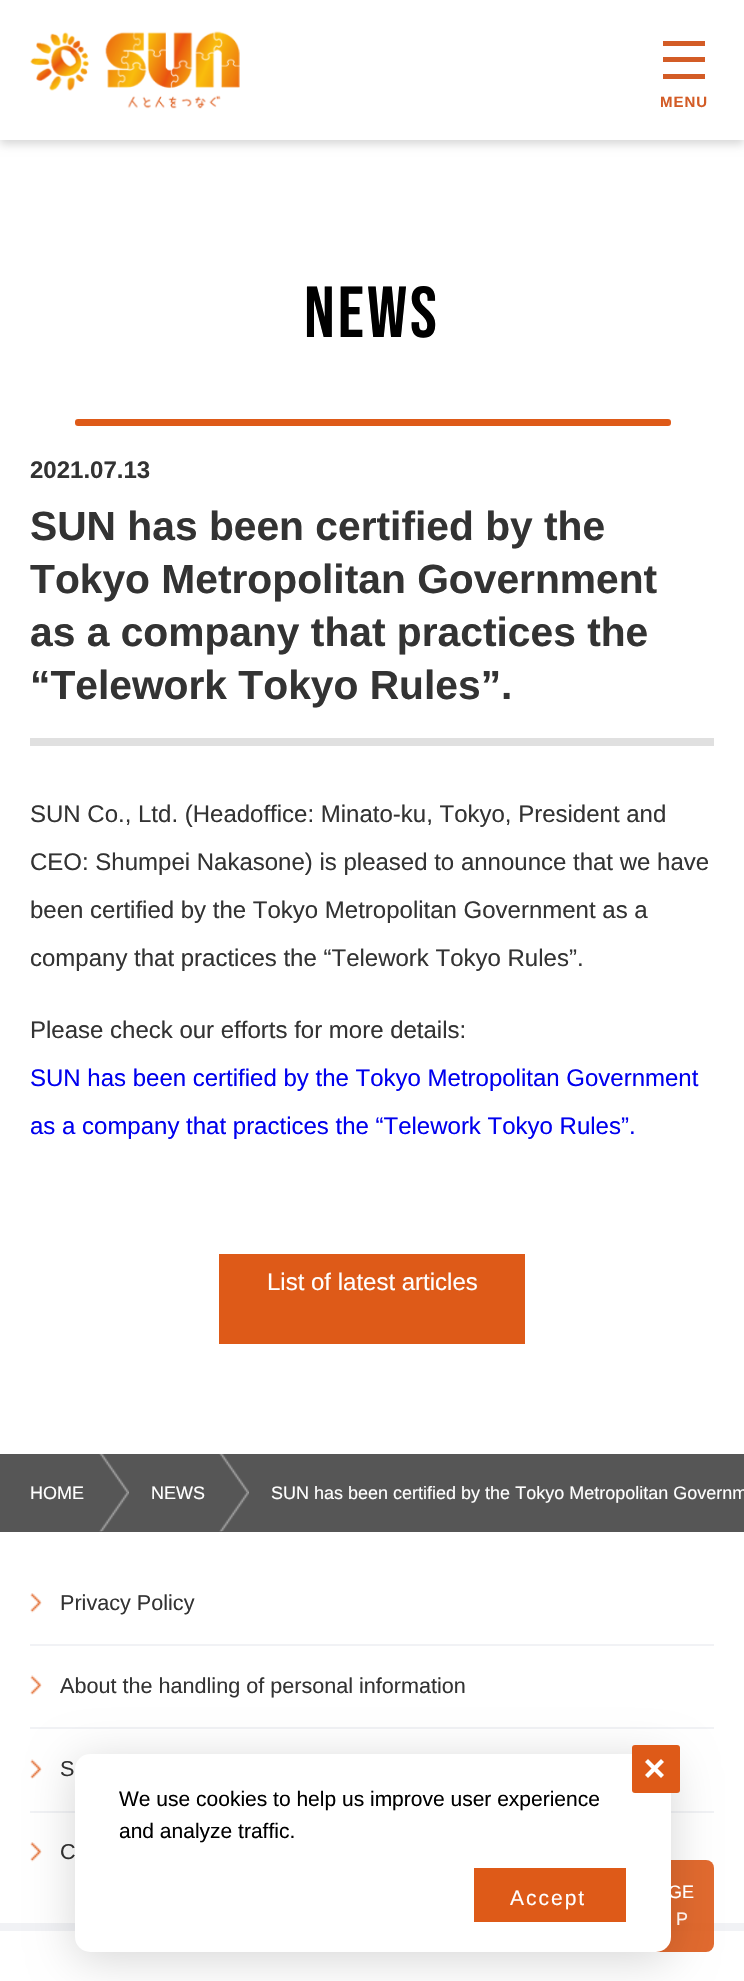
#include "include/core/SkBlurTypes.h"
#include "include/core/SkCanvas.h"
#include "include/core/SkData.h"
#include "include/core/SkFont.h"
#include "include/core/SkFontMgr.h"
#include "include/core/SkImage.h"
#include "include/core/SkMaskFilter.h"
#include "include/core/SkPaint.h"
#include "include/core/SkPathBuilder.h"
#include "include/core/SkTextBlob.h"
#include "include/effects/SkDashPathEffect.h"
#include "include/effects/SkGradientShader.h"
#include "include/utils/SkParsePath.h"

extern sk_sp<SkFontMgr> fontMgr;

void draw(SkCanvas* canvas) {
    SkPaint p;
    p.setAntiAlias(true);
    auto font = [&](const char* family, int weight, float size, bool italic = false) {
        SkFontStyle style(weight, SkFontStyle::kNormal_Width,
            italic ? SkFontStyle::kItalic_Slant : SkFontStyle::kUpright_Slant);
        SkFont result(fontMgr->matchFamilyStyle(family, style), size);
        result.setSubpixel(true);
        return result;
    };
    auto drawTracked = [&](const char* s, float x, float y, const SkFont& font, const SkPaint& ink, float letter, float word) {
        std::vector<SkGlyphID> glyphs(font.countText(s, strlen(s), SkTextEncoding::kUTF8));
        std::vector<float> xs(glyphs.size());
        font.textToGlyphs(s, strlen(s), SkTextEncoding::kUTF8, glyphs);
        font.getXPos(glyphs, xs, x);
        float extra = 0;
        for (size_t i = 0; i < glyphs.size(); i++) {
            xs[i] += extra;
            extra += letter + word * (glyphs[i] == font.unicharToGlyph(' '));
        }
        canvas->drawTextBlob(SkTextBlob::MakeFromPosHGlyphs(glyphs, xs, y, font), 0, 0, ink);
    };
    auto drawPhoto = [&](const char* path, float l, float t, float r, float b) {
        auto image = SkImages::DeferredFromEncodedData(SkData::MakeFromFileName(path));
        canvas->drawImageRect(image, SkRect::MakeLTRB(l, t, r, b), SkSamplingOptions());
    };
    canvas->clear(0xFFFFFFFF);
    p.setColor(0x29000000);
    p.setMaskFilter(SkMaskFilter::MakeBlur(kNormal_SkBlurStyle, 4.5f));
    canvas->drawRect(SkRect::MakeLTRB(0, 5, 744, 144), p);
    p.setMaskFilter(nullptr);
    p.setColor(0xFFFFFFFF);
    canvas->drawRect(SkRect::MakeLTRB(0, 0, 744, 140), p);
    drawPhoto("media/1.png", 30, 31, 240, 109);
    {
        const struct { float l, t, r, b; SkColor color; } items[] = {
            {663, 41, 705, 46, 0xFFD35C26},
            {663, 57, 705, 62, 0xFFD35C26},
            {663, 74, 705, 79, 0xFFD35C26},
        };
        for (auto [l, t, r, b, color] : items) {
            p.setColor(color);
            canvas->drawRect(SkRect::MakeLTRB(l, t, r, b), p);
        }
    }
    auto font1 = font("Liberation Sans", 700, 15);
    drawTracked("MENU", 660, 107, font1, p, 1, 0);
    auto font2 = font("Bebas Neue", 400, 72);
    p.setColor(0xFF000000);
    drawTracked("news", 304, 337, font2, p, 3, 0);
    p.setColor(0xFFDE5A18);
    canvas->drawRoundRect(SkRect::MakeLTRB(75, 419, 671, 426), 3, 3, p);
    auto font3 = font("Liberation Sans", 700, 24);
    p.setColor(0xFF333333);
    canvas->drawString("2021.07.13", 30, 478, font3, p);
    p.setColor(0xFFE0E0E0);
    canvas->drawRect(SkRect::MakeLTRB(30, 738, 714, 746), p);
    auto font4 = font("Liberation Sans", 700, 40.75f);
    p.setColor(0xFF333333);
    {
        const struct { const char* s; float x, y; } items[] = {
            {"SUN has been certified by the", 30, 540},
            {"Tokyo Metropolitan Government", 30, 593},
            {"as a company that practices the", 30, 646},
            {"“Telework Tokyo Rules”.", 30, 699},
        };
        for (auto [s, x, y] : items) {
            canvas->drawString(s, x, y, font4, p);
        }
    }
    auto font5 = font("Liberation Sans", 400, 24);
    {
        const struct { const char* s; float x, y; } items[] = {
            {"SUN Co., Ltd. (Headoffice: Minato-ku, Tokyo, President and", 30, 822},
            {"CEO: Shumpei Nakasone) is pleased to announce that we have", 30, 870},
            {"been certified by the Tokyo Metropolitan Government as a", 30, 918},
            {"company that practices the “Telework Tokyo Rules”.", 30, 966},
            {"Please check our efforts for more details:", 30, 1038},
        };
        for (auto [s, x, y] : items) {
            canvas->drawString(s, x, y, font5, p);
        }
    }
    p.setColor(0xFF0000EE);
    canvas->drawString("SUN has been certified by the Tokyo Metropolitan Government", 30, 1086, font5, p);
    canvas->drawString("as a company that practices the “Telework Tokyo Rules”.", 30, 1134, font5, p);
    p.setColor(0xFFDE5A18);
    canvas->drawRect(SkRect::MakeLTRB(219, 1254, 525, 1344), p);
    p.setColor(0xFFFFFFFF);
    canvas->drawString("List of latest articles", 267, 1290, font5, p);
    p.setColor(0xFF565656);
    canvas->drawRect(SkRect::MakeLTRB(0, 1454, 744, 1532), p);
    drawPhoto("media/2.png", 99, 1454, 129, 1532);
    auto font6 = font("Liberation Sans", 400, 18);
    p.setColor(0xFFFFFFFF);
    canvas->drawString("HOME", 30, 1499, font6, p);
    drawPhoto("media/2.png", 219, 1454, 249, 1532);
    canvas->drawString("NEWS", 151, 1499, font6, p);
    canvas->drawString("SUN has been certified by the Tokyo Metropolitan Governm", 271, 1499, font6, p);
    p.setColor(0xFFF1F2F5);
    canvas->drawRect(SkRect::MakeLTRB(0, 1923, 744, 1931), p);
    drawPhoto("media/3.png", 30, 1593, 42, 1613);
    canvas->drawRect(SkRect::MakeLTRB(30, 1644, 714, 1646), p);
    auto font7 = font("Liberation Sans", 400, 21.6f);
    p.setColor(0xFF333333);
    canvas->drawString("Privacy Policy", 60, 1610, font7, p);
    drawPhoto("media/4.png", 30, 1675, 42, 1695);
    p.setColor(0xFFF1F2F5);
    canvas->drawRect(SkRect::MakeLTRB(30, 1727, 714, 1729), p);
    p.setColor(0xFF333333);
    canvas->drawString("About the handling of personal information", 60, 1693, font7, p);
    drawPhoto("media/4.png", 30, 1759, 42, 1779);
    p.setColor(0xFFF1F2F5);
    canvas->drawRect(SkRect::MakeLTRB(30, 1811, 714, 1813), p);
    p.setColor(0xFF333333);
    canvas->drawString("S", 60, 1776, font7, p);
    drawPhoto("media/3.png", 30, 1842, 42, 1862);
    canvas->drawString("C", 60, 1859, font7, p);
    p.setColor(0xE6DE5A18);
    canvas->drawRoundRect(SkRect::MakeLTRB(624, 1860, 714, 1952), 8, 8, p);
    p.setColor(0x29000000);
    p.setMaskFilter(SkMaskFilter::MakeBlur(kNormal_SkBlurStyle, 22.5f));
    canvas->drawRoundRect(SkRect::MakeLTRB(75, 1761, 671, 1959), 15, 15, p);
    p.setMaskFilter(nullptr);
    p.setColor(0xFFFFFFFF);
    canvas->drawRoundRect(SkRect::MakeLTRB(75, 1754, 671, 1952), 15, 15, p);
    auto font8 = font("Liberation Sans", 400, 21);
    p.setColor(0xFF000000);
    canvas->drawString("We use cookies to help us improve user experience", 119, 1806, font8, p);
    canvas->drawString("and analyze traffic.", 119, 1838, font8, p);
    p.setColor(0xFFDE5A18);
    canvas->drawRoundRect(SkRect::MakeLTRB(632, 1745, 680, 1793), 3, 3, p);
    p.setColor(0xFFFFFFFF);
    canvas->drawPath(SkPathBuilder().moveTo(648, 1759).lineTo(664, 1775).lineTo(661, 1778).lineTo(645, 1762).close().detach(), p);
    canvas->drawPath(SkPathBuilder().moveTo(645, 1775).lineTo(661, 1759).lineTo(664, 1762).lineTo(648, 1778).close().detach(), p);
    p.setColor(0xFFDE5A18);
    canvas->drawRect(SkRect::MakeLTRB(474, 1868, 626, 1922), p);
    p.setColor(0xFFFFFFFF);
    drawTracked("Accept", 510, 1905, font8, p, 2, 0);
    canvas->drawString("GE", 668, 1898, font6, p);
    p.setColor(0xFFFCF0EA);
    canvas->drawString("P", 676, 1925, font6, p);
}
